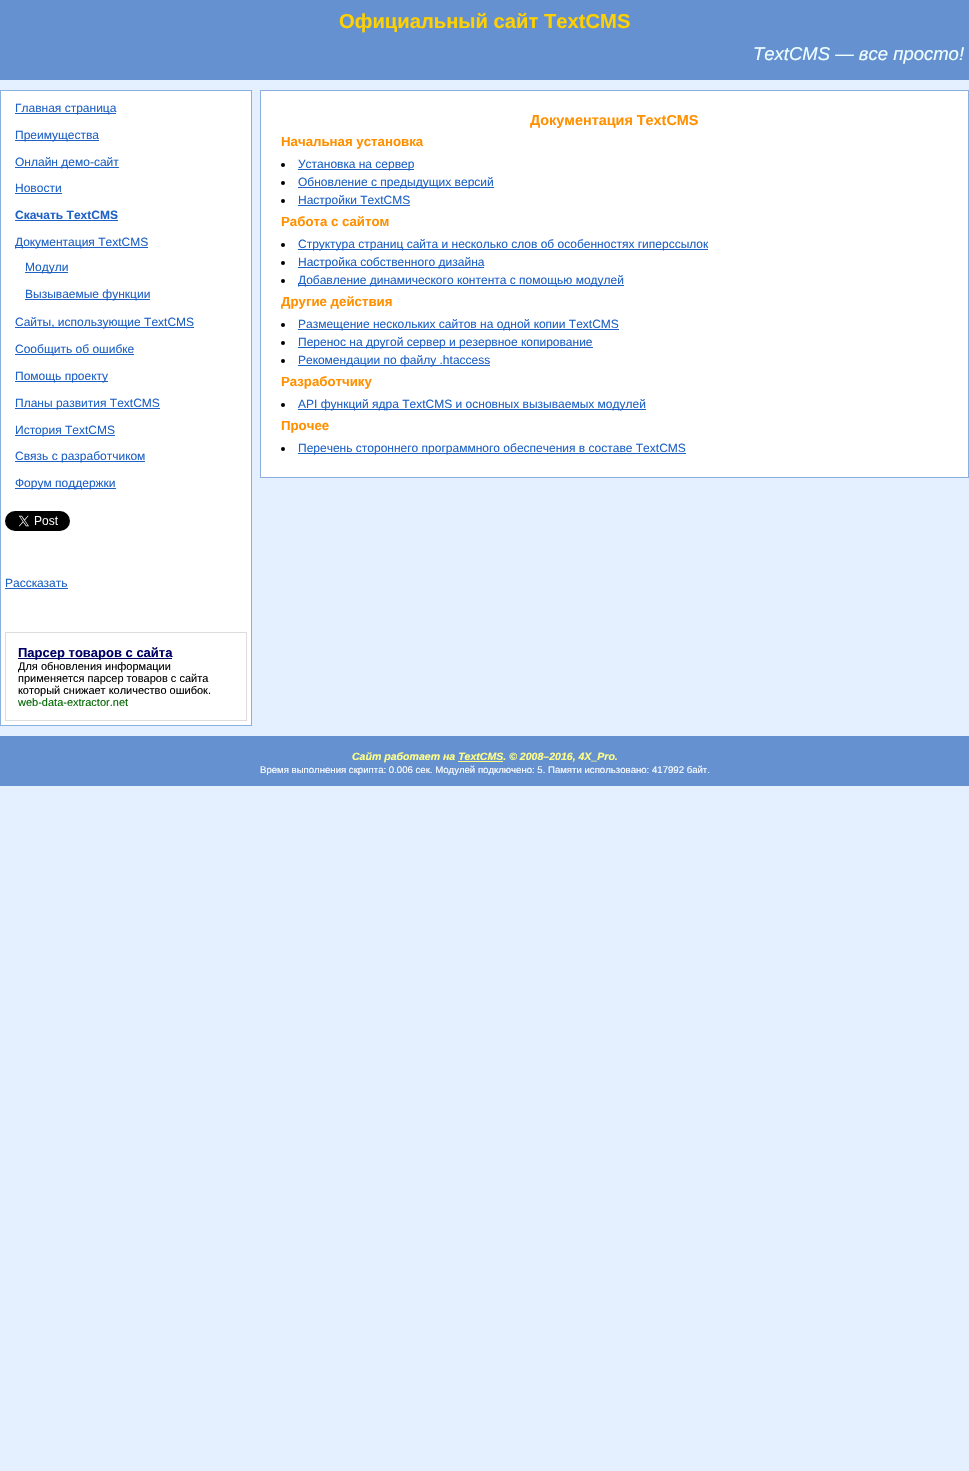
#include "include/core/SkBlurTypes.h"
#include "include/core/SkCanvas.h"
#include "include/core/SkData.h"
#include "include/core/SkFont.h"
#include "include/core/SkFontMgr.h"
#include "include/core/SkImage.h"
#include "include/core/SkMaskFilter.h"
#include "include/core/SkPaint.h"
#include "include/core/SkPathBuilder.h"
#include "include/core/SkTextBlob.h"
#include "include/effects/SkDashPathEffect.h"
#include "include/effects/SkGradientShader.h"
#include "include/utils/SkParsePath.h"

extern sk_sp<SkFontMgr> fontMgr;

void draw(SkCanvas* canvas) {
    SkPaint p;
    p.setAntiAlias(true);
    auto font = [&](const char* family, int weight, float size, bool italic = false) {
        SkFontStyle style(weight, SkFontStyle::kNormal_Width,
            italic ? SkFontStyle::kItalic_Slant : SkFontStyle::kUpright_Slant);
        SkFont result(fontMgr->matchFamilyStyle(family, style), size);
        result.setSubpixel(true);
        return result;
    };
    auto drawPhoto = [&](const char* path, float l, float t, float r, float b) {
        auto image = SkImages::DeferredFromEncodedData(SkData::MakeFromFileName(path));
        canvas->drawImageRect(image, SkRect::MakeLTRB(l, t, r, b), SkSamplingOptions());
    };
    canvas->clear(0xFFE4F0FF);
    p.setColor(0xFF6591D1);
    canvas->drawRect(SkRect::MakeLTRB(0, 0, 969, 80), p);
    auto font1 = font("Liberation Sans", 700, 20.2f);
    p.setColor(0xFFFFD100);
    canvas->drawString("Официальный сайт TextCMS", 339, 28, font1, p);
    auto font2 = font("Liberation Sans", 400, 18.5f, true);
    p.setColor(0xFFEEFFFF);
    canvas->drawString("TextCMS — все просто!", 753, 60, font2, p);
    p.setColor(0xFFFFFFFF);
    canvas->drawRect(SkRect::MakeLTRB(0.5f, 90.5f, 251.5f, 725.5f), p);
    p.setStyle(SkPaint::kStroke_Style);
    p.setStrokeWidth(1);
    p.setColor(0xFF8AB0DF);
    canvas->drawRect(SkRect::MakeLTRB(0.5f, 90.5f, 251.5f, 725.5f), p);
    p.setStyle(SkPaint::kFill_Style);
    p.setColor(0xFF1F62C5);
    canvas->drawRect(SkRect::MakeLTRB(15, 113, 116, 114), p);
    auto font3 = font("Liberation Sans", 400, 12);
    canvas->drawString("Главная страница", 15, 112, font3, p);
    canvas->drawRect(SkRect::MakeLTRB(15, 140, 99, 141), p);
    canvas->drawString("Преимущества", 15, 139, font3, p);
    canvas->drawRect(SkRect::MakeLTRB(15, 167, 119, 168), p);
    canvas->drawString("Онлайн демо-сайт", 15, 166, font3, p);
    canvas->drawString("Новости", 15, 192, font3, p);
    canvas->drawRect(SkRect::MakeLTRB(15, 193, 62, 194), p);
    auto font4 = font("Liberation Sans", 700, 12);
    canvas->drawString("Скачать TextCMS", 15, 219, font4, p);
    canvas->drawRect(SkRect::MakeLTRB(15, 220, 118, 221), p);
    canvas->drawRect(SkRect::MakeLTRB(15, 247, 148, 248), p);
    canvas->drawString("Документация TextCMS", 15, 246, font3, p);
    canvas->drawRect(SkRect::MakeLTRB(25, 272, 68, 273), p);
    canvas->drawString("Модули", 25, 271, font3, p);
    canvas->drawRect(SkRect::MakeLTRB(25, 299, 150, 300), p);
    canvas->drawString("Вызываемые функции", 25, 298, font3, p);
    canvas->drawRect(SkRect::MakeLTRB(15, 327, 194, 328), p);
    canvas->drawString("Сайты, использующие TextCMS", 15, 326, font3, p);
    canvas->drawRect(SkRect::MakeLTRB(15, 354, 134, 355), p);
    canvas->drawString("Сообщить об ошибке", 15, 353, font3, p);
    canvas->drawRect(SkRect::MakeLTRB(15, 381, 108, 382), p);
    canvas->drawString("Помощь проекту", 15, 380, font3, p);
    canvas->drawRect(SkRect::MakeLTRB(15, 408, 160, 409), p);
    canvas->drawString("Планы развития TextCMS", 15, 407, font3, p);
    canvas->drawRect(SkRect::MakeLTRB(15, 435, 115, 436), p);
    canvas->drawString("История TextCMS", 15, 434, font3, p);
    canvas->drawRect(SkRect::MakeLTRB(15, 461, 145, 462), p);
    canvas->drawString("Связь с разработчиком", 15, 460, font3, p);
    canvas->drawRect(SkRect::MakeLTRB(15, 488, 116, 489), p);
    canvas->drawString("Форум поддержки", 15, 487, font3, p);
    drawPhoto("media/1.png", 5, 511, 70, 531);
    canvas->drawString("Рассказать", 5, 587, font3, p);
    canvas->drawRect(SkRect::MakeLTRB(5, 588, 68, 589), p);
    p.setStyle(SkPaint::kStroke_Style);
    p.setColor(0xFFDDDDDD);
    canvas->drawRect(SkRect::MakeLTRB(5.5f, 632.5f, 246.5f, 720.5f), p);
    p.setStyle(SkPaint::kFill_Style);
    p.setColor(0xFF000066);
    canvas->drawRect(SkRect::MakeLTRB(18, 658, 172, 659), p);
    auto font5 = font("Liberation Sans", 700, 13);
    canvas->drawString("Парсер товаров с сайта", 18, 657, font5, p);
    auto font6 = font("Liberation Sans", 400, 11);
    p.setColor(0xFF000000);
    {
        const struct { const char* s; float x, y; } items[] = {
            {"Для обновления информации", 18, 670},
            {"применяется парсер товаров с сайта", 18, 682},
            {"который снижает количество ошибок.", 18, 694},
        };
        for (auto [s, x, y] : items) {
            canvas->drawString(s, x, y, font6, p);
        }
    }
    p.setColor(0xFF006600);
    canvas->drawString("web-data-extractor.net", 18, 706, font6, p);
    p.setColor(0xFFFFFFFF);
    canvas->drawRect(SkRect::MakeLTRB(260.5f, 90.5f, 968.5f, 477.5f), p);
    p.setStyle(SkPaint::kStroke_Style);
    p.setColor(0xFF8AB0DF);
    canvas->drawRect(SkRect::MakeLTRB(260.5f, 90.5f, 968.5f, 477.5f), p);
    auto font7 = font("Liberation Sans", 700, 14.4f);
    p.setStyle(SkPaint::kFill_Style);
    p.setColor(0xFFFF9100);
    canvas->drawString("Документация TextCMS", 530, 125, font7, p);
    auto font8 = font("Liberation Sans", 700, 13.25f);
    canvas->drawString("Начальная установка", 281, 146, font8, p);
    p.setColor(0xFF000000);
    canvas->drawCircle(283, 165, 2, p);
    p.setColor(0xFF1F62C5);
    canvas->drawRect(SkRect::MakeLTRB(298, 169, 414, 170), p);
    canvas->drawString("Установка на сервер", 298, 168, font3, p);
    p.setColor(0xFF000000);
    canvas->drawCircle(283, 183, 2, p);
    p.setColor(0xFF1F62C5);
    canvas->drawRect(SkRect::MakeLTRB(298, 187, 494, 188), p);
    canvas->drawString("Обновление с предыдущих версий", 298, 186, font3, p);
    p.setColor(0xFF000000);
    canvas->drawCircle(283, 201, 2, p);
    p.setColor(0xFF1F62C5);
    canvas->drawRect(SkRect::MakeLTRB(298, 205, 410, 206), p);
    canvas->drawString("Настройки TextCMS", 298, 204, font3, p);
    p.setColor(0xFFFF9100);
    canvas->drawString("Работа с сайтом", 281, 226, font8, p);
    p.setColor(0xFF000000);
    canvas->drawCircle(283, 245, 2, p);
    p.setColor(0xFF1F62C5);
    canvas->drawRect(SkRect::MakeLTRB(298, 249, 708, 250), p);
    canvas->drawString("Структура страниц сайта и несколько слов об особенностях гиперссылок", 298, 248, font3, p);
    p.setColor(0xFF000000);
    canvas->drawCircle(283, 263, 2, p);
    p.setColor(0xFF1F62C5);
    canvas->drawRect(SkRect::MakeLTRB(298, 267, 484, 268), p);
    canvas->drawString("Настройка собственного дизайна", 298, 266, font3, p);
    p.setColor(0xFF000000);
    canvas->drawCircle(283, 281, 2, p);
    p.setColor(0xFF1F62C5);
    canvas->drawRect(SkRect::MakeLTRB(298, 285, 624, 286), p);
    canvas->drawString("Добавление динамического контента с помощью модулей", 298, 284, font3, p);
    p.setColor(0xFFFF9100);
    canvas->drawString("Другие действия", 281, 306, font8, p);
    p.setColor(0xFF000000);
    canvas->drawCircle(283, 325, 2, p);
    p.setColor(0xFF1F62C5);
    canvas->drawRect(SkRect::MakeLTRB(298, 329, 619, 330), p);
    canvas->drawString("Размещение нескольких сайтов на одной копии TextCMS", 298, 328, font3, p);
    p.setColor(0xFF000000);
    canvas->drawCircle(283, 343, 2, p);
    p.setColor(0xFF1F62C5);
    canvas->drawRect(SkRect::MakeLTRB(298, 347, 593, 348), p);
    canvas->drawString("Перенос на другой сервер и резервное копирование", 298, 346, font3, p);
    p.setColor(0xFF000000);
    canvas->drawCircle(283, 361, 2, p);
    p.setColor(0xFF1F62C5);
    canvas->drawRect(SkRect::MakeLTRB(298, 365, 490, 366), p);
    canvas->drawString("Рекомендации по файлу .htaccess", 298, 364, font3, p);
    p.setColor(0xFFFF9100);
    canvas->drawString("Разработчику", 281, 386, font8, p);
    p.setColor(0xFF000000);
    canvas->drawCircle(283, 405, 2, p);
    p.setColor(0xFF1F62C5);
    canvas->drawRect(SkRect::MakeLTRB(298, 409, 646, 410), p);
    canvas->drawString("API функций ядра TextCMS и основных вызываемых модулей", 298, 408, font3, p);
    p.setColor(0xFFFF9100);
    canvas->drawString("Прочее", 281, 430, font8, p);
    p.setColor(0xFF000000);
    canvas->drawCircle(283, 449, 2, p);
    p.setColor(0xFF1F62C5);
    canvas->drawRect(SkRect::MakeLTRB(298, 453, 686, 454), p);
    canvas->drawString("Перечень стороннего программного обеспечения в составе TextCMS", 298, 452, font3, p);
    p.setColor(0xFF6591D1);
    canvas->drawRect(SkRect::MakeLTRB(0, 736, 969, 786), p);
    auto font9 = font("Liberation Sans", 700, 10.55f, true);
    p.setColor(0xFFFFFF88);
    canvas->drawString("Сайт работает на TextCMS. © 2008–2016, 4X_Pro.", 352, 760, font9, p);
    canvas->drawRect(SkRect::MakeLTRB(458, 761, 503, 762), p);
    auto font10 = font("Liberation Sans", 400, 9.6f);
    p.setColor(0xFFFFFFFF);
    canvas->drawString("Время выполнения скрипта: 0.006 сек. Модулей подключено: 5. Памяти использовано: 417992 байт.", 260, 773, font10, p);
}
